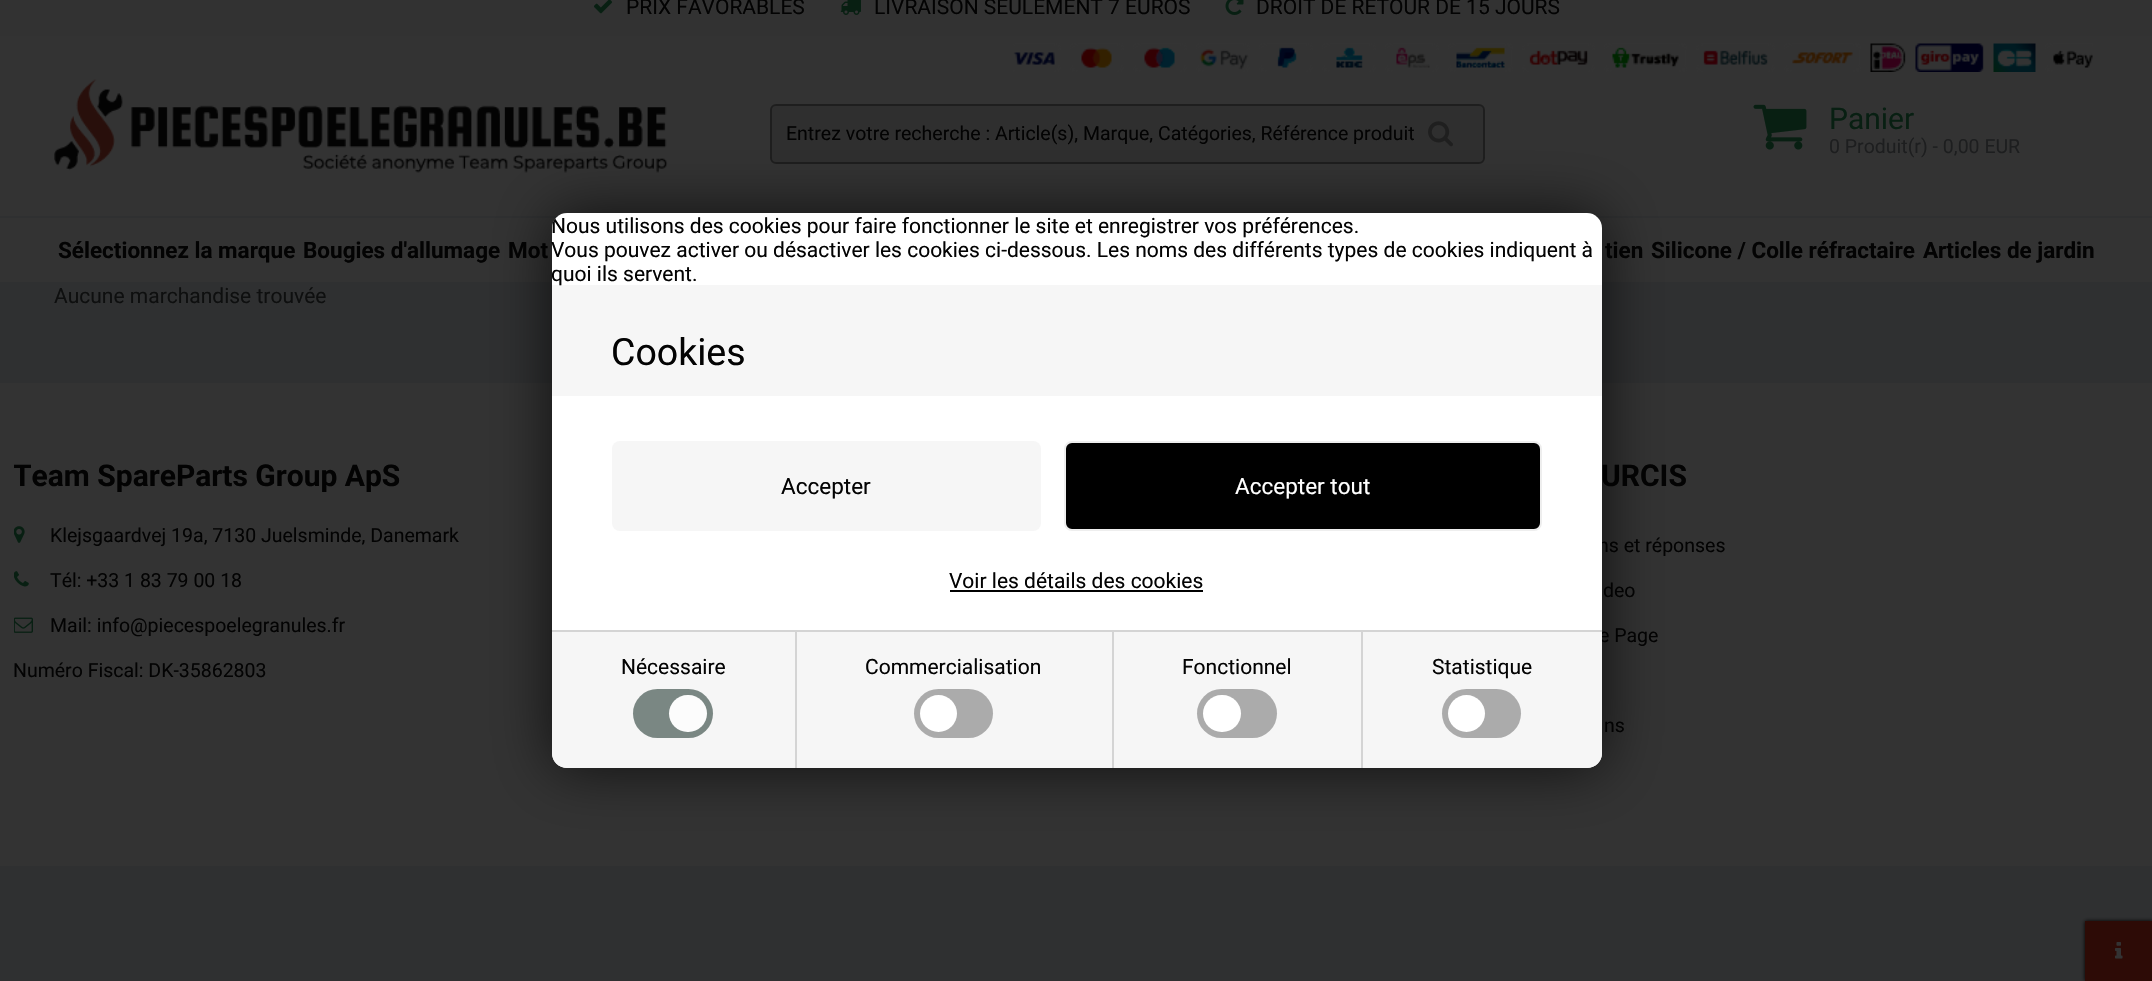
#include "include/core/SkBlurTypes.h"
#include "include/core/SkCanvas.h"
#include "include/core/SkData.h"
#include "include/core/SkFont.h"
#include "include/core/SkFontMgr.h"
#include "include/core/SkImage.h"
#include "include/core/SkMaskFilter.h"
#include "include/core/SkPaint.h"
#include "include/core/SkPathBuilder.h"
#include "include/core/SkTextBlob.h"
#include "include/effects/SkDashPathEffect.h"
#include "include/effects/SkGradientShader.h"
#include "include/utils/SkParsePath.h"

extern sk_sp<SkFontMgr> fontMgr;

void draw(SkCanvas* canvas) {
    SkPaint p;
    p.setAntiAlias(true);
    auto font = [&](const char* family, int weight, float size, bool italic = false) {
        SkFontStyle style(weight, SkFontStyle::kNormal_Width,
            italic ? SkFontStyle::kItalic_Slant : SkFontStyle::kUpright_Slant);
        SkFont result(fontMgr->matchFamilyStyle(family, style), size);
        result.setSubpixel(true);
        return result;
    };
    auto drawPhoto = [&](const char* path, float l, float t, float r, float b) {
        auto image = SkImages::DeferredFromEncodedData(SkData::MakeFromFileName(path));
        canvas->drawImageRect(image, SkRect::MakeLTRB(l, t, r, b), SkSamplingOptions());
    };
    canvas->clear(0xFF2F3031);
    p.setColor(0xFF323232);
    canvas->drawRect(SkRect::MakeLTRB(0, 0, 2152, 36), p);
    drawPhoto("media/1.png", 593, 0, 613, 14);
    auto font1 = font("Roboto", 400, 21);
    p.setColor(0xFF030303);
    canvas->drawString("PRIX FAVORABLES", 626, 14, font1, p);
    drawPhoto("media/2.png", 840, 0, 861, 15);
    canvas->drawString("LIVRAISON SEULEMENT 7 EUROS", 874, 14, font1, p);
    drawPhoto("media/3.png", 1225, 0, 1244, 15);
    canvas->drawString("DROIT DE RETOUR DE 15 JOURS", 1256, 14, font1, p);
    p.setColor(0xFF333333);
    canvas->drawRect(SkRect::MakeLTRB(0, 36, 2152, 216), p);
    drawPhoto("media/4.png", 1013, 43, 2093, 72);
    drawPhoto("media/5.png", 54, 79, 668, 173);
    p.setColor(0xFF2F2F2F);
    canvas->drawRoundRect(SkRect::MakeLTRB(771, 105, 1484, 163), 5, 5, p);
    p.setStyle(SkPaint::kStroke_Style);
    p.setStrokeWidth(2);
    p.setColor(0xFF1E1E1E);
    canvas->drawRoundRect(SkRect::MakeLTRB(771, 105, 1484, 163), 5, 5, p);
    auto font2 = font("Roboto", 400, 19.5f);
    p.setStyle(SkPaint::kFill_Style);
    p.setColor(0xFF030303);
    canvas->drawString("Entrez votre recherche : Article(s), Marque, Catégories, Référence produit", 786, 140, font2, p);
    drawPhoto("media/6.png", 1428, 121, 1453, 147);
    drawPhoto("media/7.png", 1753, 104, 1807, 150);
    auto font3 = font("Roboto", 400, 30);
    p.setColor(0xFF081F12);
    canvas->drawString("Panier", 1829, 129, font3, p);
    p.setColor(0xFF1D1E1F);
    canvas->drawString("0 Produit(r) - 0,00 EUR", 1829, 153, font2, p);
    p.setColor(0xFF333333);
    canvas->drawRect(SkRect::MakeLTRB(0, 218, 2152, 282), p);
    auto font4 = font("Roboto", 700, 22.5f);
    p.setColor(0xFF030303);
    {
        const struct { const char* s; float x, y; } items[] = {
            {"Sélectionnez la marque", 58, 258},
            {"Bougies d'allumage", 303, 258},
            {"Mot", 508, 258},
            {"tien", 1605, 258},
            {"Silicone / Colle réfractaire", 1651, 258},
            {"Articles de jardin", 1923, 258},
        };
        for (auto [s, x, y] : items) {
            canvas->drawString(s, x, y, font4, p);
        }
    }
    p.setColor(0xFF0E0F0F);
    canvas->drawString("Aucune marchandise trouvée", 54, 303, font1, p);
    p.setColor(0xFF333333);
    canvas->drawRect(SkRect::MakeLTRB(0, 383, 2152, 866), p);
    canvas->save();
    canvas->clipRect(SkRect::MakeLTRB(14, 458, 2139, 776));
    auto font5 = font("Roboto", 700, 30);
    p.setColor(0xFF030303);
    canvas->drawString("Team SpareParts Group ApS", 13, 486, font5, p);
    canvas->restore();
    drawPhoto("media/8.png", 14, 526, 25, 543);
    canvas->drawString("Klejsgaardvej 19a, 7130 Juelsminde, Danemark", 50, 542, font2, p);
    drawPhoto("media/9.png", 14, 571, 29, 587);
    canvas->drawString("Tél: +33 1 83 79 00 18", 50, 587, font2, p);
    drawPhoto("media/10.png", 14, 617, 33, 633);
    canvas->drawString("Mail: info@piecespoelegranules.fr", 50, 632, font2, p);
    canvas->drawString("Numéro Fiscal: DK-35862803", 13, 677, font2, p);
    canvas->drawString("URCIS", 1601, 486, font5, p);
    {
        const struct { const char* s; float x, y; } items[] = {
            {"ns et réponses", 1598, 552},
            {"deo", 1603, 597},
            {"e Page", 1599, 642},
            {"ns", 1604, 732},
        };
        for (auto [s, x, y] : items) {
            canvas->drawString(s, x, y, font2, p);
        }
    }
    p.setColor(0xB3000000);
    p.setMaskFilter(SkMaskFilter::MakeBlur(kNormal_SkBlurStyle, 30));
    canvas->drawRoundRect(SkRect::MakeLTRB(552, 213, 1602, 768), 15, 15, p);
    p.setMaskFilter(nullptr);
    p.setColor(0xFFFFFFFF);
    canvas->drawRoundRect(SkRect::MakeLTRB(552, 213, 1602, 768), 15, 15, p);
    canvas->save();
    canvas->clipPath(SkPathBuilder().moveTo(567, 213).lineTo(1587, 213).cubicTo(1595.5f, 213, 1602, 219.5f, 1602, 228).lineTo(1602, 753).cubicTo(1602, 761.5f, 1595.5f, 768, 1587, 768).lineTo(567, 768).cubicTo(558.5f, 768, 552, 761.5f, 552, 753).lineTo(552, 228).cubicTo(552, 219.5f, 558.5f, 213, 567, 213).close().detach(), true);
    p.setColor(0xFF030303);
    canvas->drawString("Nous utilisons des cookies pour faire fonctionner le site et enregistrer vos préférences.", 551, 233, font1, p);
    canvas->restore();
    canvas->drawString("Vous pouvez activer ou désactiver les cookies ci-dessous. Les noms des différents types de cookies indiquent à", 551, 257, font1, p);
    p.setColor(0xFFF6F6F6);
    canvas->drawRect(SkRect::MakeLTRB(552, 285, 1602, 396), p);
    p.setColor(0xFF030303);
    canvas->drawString("quoi ils servent.", 551, 281, font1, p);
    auto font6 = font("Roboto", 400, 37.5f);
    canvas->drawString("Cookies", 611, 365, font6, p);
    p.setColor(0xFFF6F6F6);
    canvas->drawRoundRect(SkRect::MakeLTRB(612, 441, 1041, 531), 8, 8, p);
    auto font7 = font("Roboto", 400, 22.5f);
    p.setColor(0xFF030303);
    canvas->drawString("Accepter", 781, 494, font7, p);
    p.setColor(0xFF000000);
    canvas->drawRoundRect(SkRect::MakeLTRB(1065, 442, 1541, 530), 7, 7, p);
    p.setStyle(SkPaint::kStroke_Style);
    p.setColor(0xFFEEEEEE);
    canvas->drawRoundRect(SkRect::MakeLTRB(1065, 442, 1541, 530), 7, 7, p);
    p.setStyle(SkPaint::kFill_Style);
    p.setColor(0xFFFFFFFF);
    canvas->drawString("Accepter tout", 1235, 494, font7, p);
    p.setColor(0xFF030303);
    canvas->drawString("Voir les détails des cookies", 949, 588, font1, p);
    p.setColor(0xFF000000);
    canvas->drawRect(SkRect::MakeLTRB(950, 590, 1203, 592), p);
    p.setColor(0xFFF6F6F6);
    canvas->drawPath(SkPathBuilder().moveTo(552, 630).lineTo(1602, 630).lineTo(1602, 753).cubicTo(1602, 761.5f, 1595.5f, 768, 1587, 768).lineTo(567, 768).cubicTo(558.5f, 768, 552, 761.5f, 552, 753).close().detach(), p);
    p.setColor(0xFFD4D4D4);
    canvas->drawRect(SkRect::MakeLTRB(552, 630, 1602, 632), p);
    canvas->drawRect(SkRect::MakeLTRB(795, 632, 797, 768), p);
    p.setColor(0xFF030303);
    canvas->drawString("Nécessaire", 621, 674, font1, p);
    p.setColor(0xFF7A8783);
    canvas->drawRoundRect(SkRect::MakeLTRB(633, 689, 713, 738), 24.5f, 24.5f, p);
    p.setColor(0xFFFCFCFC);
    canvas->drawRoundRect(SkRect::MakeLTRB(669, 695, 707, 732), 18.5f, 18.5f, p);
    p.setColor(0xFFD4D4D4);
    canvas->drawRect(SkRect::MakeLTRB(1112, 632, 1114, 768), p);
    p.setColor(0xFF030303);
    canvas->drawString("Commercialisation", 865, 674, font1, p);
    p.setColor(0xFFABABAB);
    canvas->drawRoundRect(SkRect::MakeLTRB(914, 689, 993, 738), 24.5f, 24.5f, p);
    p.setColor(0xFFFFFFFF);
    canvas->drawCircle(938.5f, 713.5f, 18.5f, p);
    p.setColor(0xFFD4D4D4);
    canvas->drawRect(SkRect::MakeLTRB(1361, 632, 1363, 768), p);
    p.setColor(0xFF030303);
    canvas->drawString("Fonctionnel", 1182, 674, font1, p);
    p.setColor(0xFFABABAB);
    canvas->drawRoundRect(SkRect::MakeLTRB(1197, 689, 1277, 738), 24.5f, 24.5f, p);
    p.setColor(0xFFFFFFFF);
    canvas->drawRoundRect(SkRect::MakeLTRB(1203, 695, 1241, 732), 18.5f, 18.5f, p);
    p.setColor(0xFF030303);
    canvas->drawString("Statistique", 1432, 674, font1, p);
    p.setColor(0xFFABABAB);
    canvas->drawRoundRect(SkRect::MakeLTRB(1442, 689, 1521, 738), 24.5f, 24.5f, p);
    p.setColor(0xFFFFFFFF);
    canvas->drawCircle(1466.5f, 713.5f, 18.5f, p);
    p.setColor(0xFF000000);
    p.setMaskFilter(SkMaskFilter::MakeBlur(kNormal_SkBlurStyle, 2));
    canvas->drawRect(SkRect::MakeLTRB(2085, 921, 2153, 981), p);
    p.setMaskFilter(nullptr);
    p.setColor(0xFF2D0B06);
    canvas->drawRect(SkRect::MakeLTRB(2085, 921, 2152, 981), p);
    drawPhoto("media/11.png", 2115, 942, 2123, 959);
}
